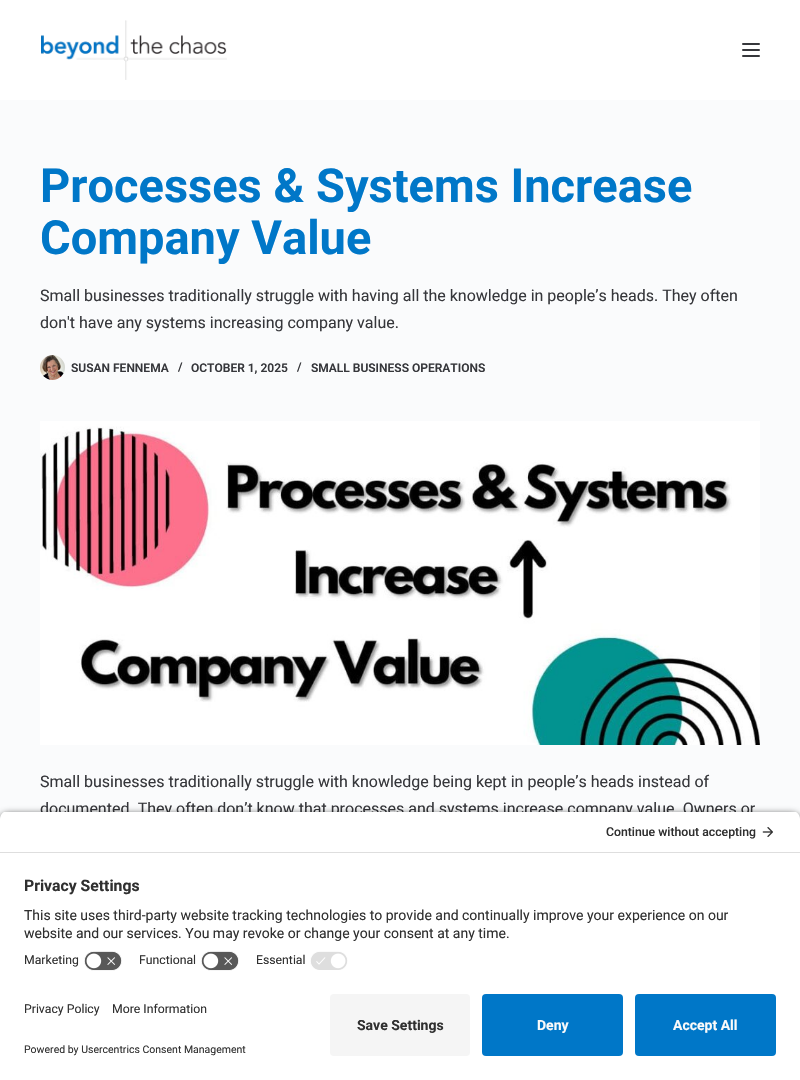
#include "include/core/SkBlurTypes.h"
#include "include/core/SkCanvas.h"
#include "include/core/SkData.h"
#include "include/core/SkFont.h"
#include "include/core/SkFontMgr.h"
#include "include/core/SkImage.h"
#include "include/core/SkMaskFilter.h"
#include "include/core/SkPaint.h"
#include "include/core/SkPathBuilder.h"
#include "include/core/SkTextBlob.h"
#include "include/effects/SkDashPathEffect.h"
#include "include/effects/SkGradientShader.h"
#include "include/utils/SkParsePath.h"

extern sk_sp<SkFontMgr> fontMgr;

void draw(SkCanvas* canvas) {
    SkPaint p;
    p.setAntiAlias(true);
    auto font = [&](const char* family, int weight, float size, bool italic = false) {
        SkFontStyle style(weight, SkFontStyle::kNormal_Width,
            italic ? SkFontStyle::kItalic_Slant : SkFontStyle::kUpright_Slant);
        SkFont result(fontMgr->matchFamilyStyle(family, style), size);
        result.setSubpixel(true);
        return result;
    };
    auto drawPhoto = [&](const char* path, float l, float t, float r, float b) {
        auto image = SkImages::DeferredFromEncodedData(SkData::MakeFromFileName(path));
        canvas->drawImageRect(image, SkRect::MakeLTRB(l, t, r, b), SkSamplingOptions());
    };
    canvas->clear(0xFFFAFBFC);
    p.setColor(0xFFFFFFFF);
    canvas->drawRect(SkRect::MakeLTRB(0, 0, 800, 100), p);
    drawPhoto("media/1.png", 41, 20, 227, 80);
    p.setColor(0xFF36373B);
    canvas->drawRoundRect(SkRect::MakeLTRB(742, 43, 760, 45), 1, 1, p);
    canvas->drawRoundRect(SkRect::MakeLTRB(742, 49, 760, 51), 1, 1, p);
    canvas->drawRoundRect(SkRect::MakeLTRB(742, 55, 760, 57), 1, 1, p);
    auto font1 = font("Roboto", 700, 47);
    p.setColor(0xFF0077C8);
    canvas->drawString("Processes & Systems Increase", 40, 202, font1, p);
    canvas->drawString("Company Value", 40, 254, font1, p);
    auto font2 = font("Roboto", 400, 16);
    p.setColor(0xFF36373B);
    canvas->drawString("Small businesses traditionally struggle with having all the knowledge in people’s heads. They often", 40, 301, font2, p);
    canvas->drawString("don't have any systems increasing company value.", 40, 328, font2, p);
    drawPhoto("media/2.png", 40, 355, 65, 380);
    auto font3 = font("Roboto", 600, 12);
    {
        const struct { const char* s; float x, y; } items[] = {
            {"SUSAN FENNEMA", 71, 372},
            {"/", 178, 371},
            {"OCTOBER 1, 2025", 191, 372},
            {"/", 297, 371},
            {"SMALL BUSINESS OPERATIONS", 311, 372},
        };
        for (auto [s, x, y] : items) {
            canvas->drawString(s, x, y, font3, p);
        }
    }
    drawPhoto("media/3.png", 40, 421, 760, 745);
    canvas->drawString("Small businesses traditionally struggle with knowledge being kept in people’s heads instead of", 40, 787, font2, p);
    canvas->drawString("documented. They often don’t know that processes and systems increase company value. Owners or", 40, 814, font2, p);
    p.setColor(0xCC000000);
    p.setMaskFilter(SkMaskFilter::MakeBlur(kNormal_SkBlurStyle, 3.5f));
    canvas->drawRoundRect(SkRect::MakeLTRB(0, 814, 800, 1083), 8, 8, p);
    p.setMaskFilter(nullptr);
    canvas->save();
    canvas->clipPath(SkPathBuilder().moveTo(8, 811).lineTo(792, 811).cubicTo(796.5f, 811, 800, 814.5f, 800, 819).lineTo(800, 986).lineTo(0, 986).lineTo(0, 819).cubicTo(0, 814.5f, 3.5f, 811, 8, 811).close().detach(), true);
    p.setColor(0xFFFFFFFF);
    canvas->drawRect(SkRect::MakeLTRB(0, 812, 800, 852), p);
    canvas->restore();
    p.setColor(0xFFDEDEDE);
    canvas->drawRect(SkRect::MakeLTRB(0, 852, 800, 853), p);
    auto font4 = font("Roboto", 500, 12.25f);
    p.setColor(0xFF303030);
    canvas->drawString("Continue without accepting", 606, 836, font4, p);
    drawPhoto("media/4.png", 762, 827, 773, 837);
    p.setColor(0xFFFFFFFF);
    canvas->drawRect(SkRect::MakeLTRB(0, 853, 800, 1080), p);
    auto font5 = font("Roboto", 700, 15.75f);
    p.setColor(0xFF303030);
    canvas->drawString("Privacy Settings", 24, 891, font5, p);
    auto font6 = font("Roboto", 400, 14);
    canvas->drawString("This site uses third-party website tracking technologies to provide and continually improve your experience on our", 24, 920, font6, p);
    canvas->drawString("website and our services. You may revoke or change your consent at any time.", 24, 938, font6, p);
    auto font7 = font("Roboto", 400, 12.25f);
    canvas->drawString("Marketing", 24, 964, font7, p);
    drawPhoto("media/5.png", 84, 951, 122, 971);
    canvas->drawString("Functional", 139, 964, font7, p);
    drawPhoto("media/5.png", 201, 951, 239, 971);
    canvas->drawString("Essential", 256, 964, font7, p);
    drawPhoto("media/6.png", 310, 951, 348, 970);
    canvas->drawString("Privacy Policy", 24, 1013, font7, p);
    canvas->drawString("More Information", 112, 1013, font7, p);
    auto font8 = font("Roboto", 400, 10.5f);
    canvas->drawString("Powered by Usercentrics Consent Management", 24, 1053, font8, p);
    p.setColor(0xFFF5F5F5);
    canvas->drawRoundRect(SkRect::MakeLTRB(330, 994, 470, 1056), 4, 4, p);
    auto font9 = font("Roboto", 700, 14);
    p.setColor(0xFF303030);
    canvas->drawString("Save Settings", 357, 1030, font9, p);
    p.setColor(0xFF0077C8);
    canvas->drawRoundRect(SkRect::MakeLTRB(482, 994, 623, 1056), 4, 4, p);
    p.setColor(0xFFFAFAFA);
    canvas->drawString("Deny", 537, 1030, font9, p);
    p.setColor(0xFF0077C8);
    canvas->drawRoundRect(SkRect::MakeLTRB(635, 994, 776, 1056), 4, 4, p);
    p.setColor(0xFFFAFAFA);
    canvas->drawString("Accept All", 673, 1030, font9, p);
}
